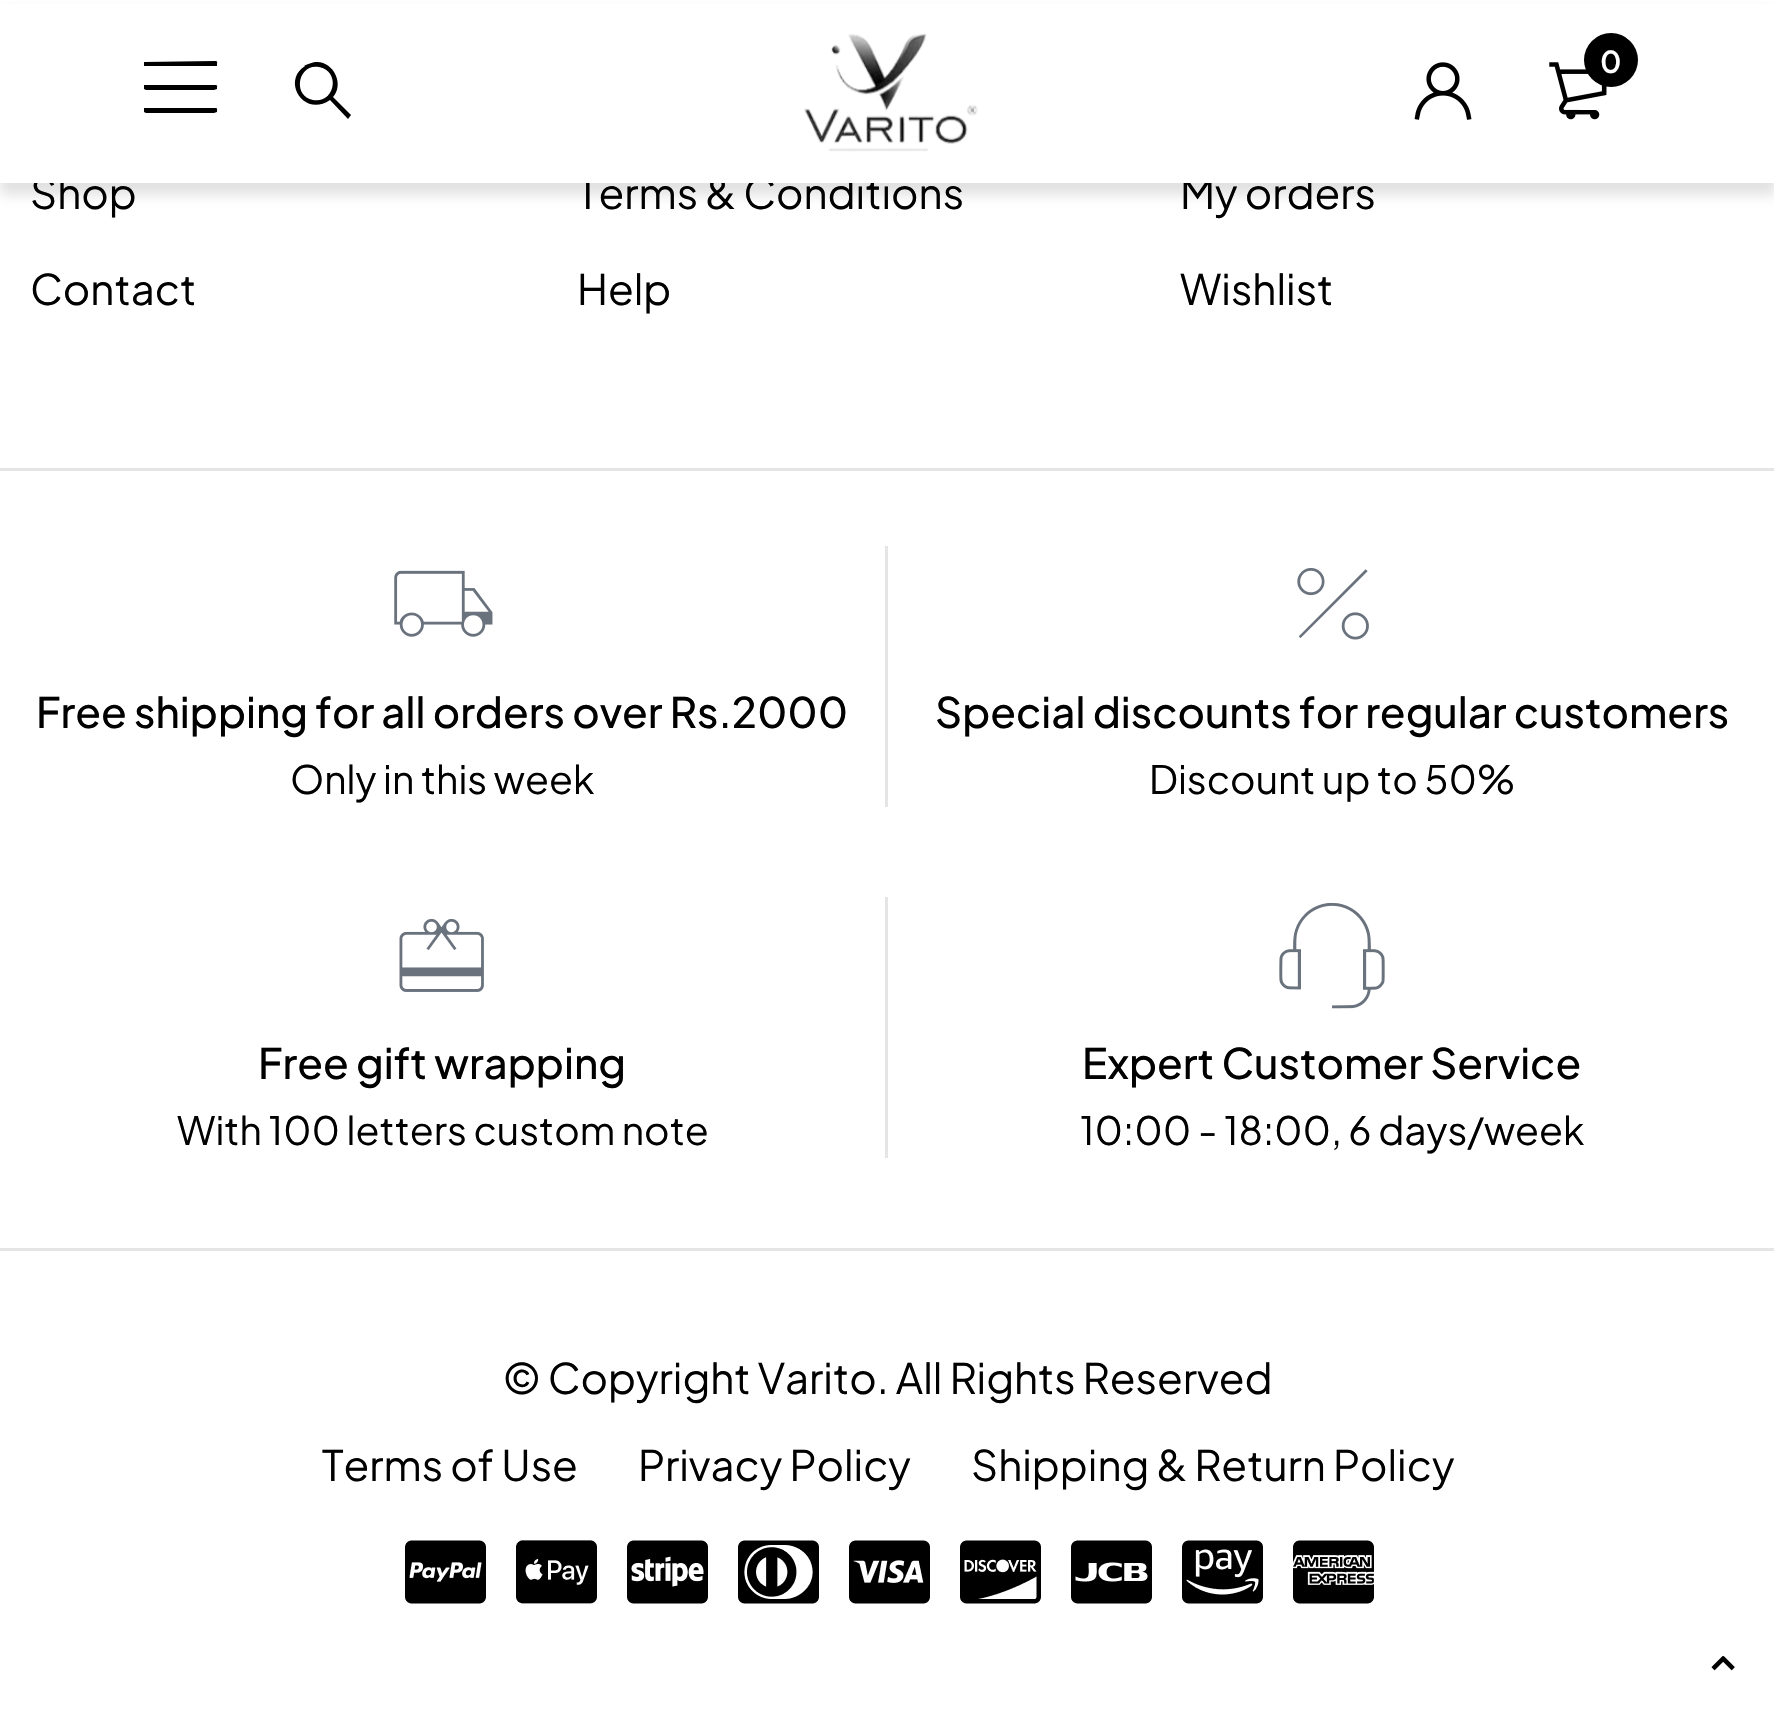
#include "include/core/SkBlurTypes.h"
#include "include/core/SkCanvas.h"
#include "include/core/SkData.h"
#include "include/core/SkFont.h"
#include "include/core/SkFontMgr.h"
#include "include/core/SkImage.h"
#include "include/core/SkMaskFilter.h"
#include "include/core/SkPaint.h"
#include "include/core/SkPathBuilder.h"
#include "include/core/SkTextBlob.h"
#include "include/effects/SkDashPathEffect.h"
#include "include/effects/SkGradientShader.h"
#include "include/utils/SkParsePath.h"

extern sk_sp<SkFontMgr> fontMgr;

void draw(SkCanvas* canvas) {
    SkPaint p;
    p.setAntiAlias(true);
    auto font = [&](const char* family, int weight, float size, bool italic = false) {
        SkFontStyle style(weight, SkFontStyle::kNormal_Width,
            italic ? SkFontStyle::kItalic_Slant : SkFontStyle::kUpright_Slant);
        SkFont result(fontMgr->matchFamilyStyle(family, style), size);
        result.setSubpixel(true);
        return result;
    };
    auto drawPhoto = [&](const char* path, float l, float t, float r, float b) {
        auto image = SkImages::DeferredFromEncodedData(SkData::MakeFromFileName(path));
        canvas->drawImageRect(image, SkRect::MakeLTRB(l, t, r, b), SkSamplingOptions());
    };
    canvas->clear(0xFFFFFFFF);
    p.setColor(0x4D9B9B9B);
    p.setMaskFilter(SkMaskFilter::MakeBlur(kNormal_SkBlurStyle, 6));
    canvas->drawRect(SkRect::MakeLTRB(0, 12, 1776, 195), p);
    p.setMaskFilter(nullptr);
    auto font1 = font("Plus Jakarta Sans", 400, 42);
    p.setColor(0xFF000000);
    {
        const struct { const char* s; float x, y; } items[] = {
            {"Shop", 30, 209},
            {"Terms & Conditions", 577, 209},
            {"My orders", 1180, 209},
        };
        for (auto [s, x, y] : items) {
            canvas->drawString(s, x, y, font1, p);
        }
    }
    p.setColor(0xFFFFFFFF);
    canvas->drawRect(SkRect::MakeLTRB(0, 4, 1774, 183), p);
    p.setColor(0xFF000000);
    canvas->drawPath(SkPathBuilder().moveTo(214, 66).lineTo(146, 66).lineTo(144, 66).lineTo(144, 62).lineTo(215, 61).cubicTo(218, 61, 217, 62, 217, 66).close().moveTo(214, 90).lineTo(146, 90).lineTo(144, 89).lineTo(144, 85).lineTo(215, 85).cubicTo(218, 85, 217, 86, 217, 89).close().moveTo(214, 113).lineTo(146, 113).lineTo(144, 112).lineTo(144, 108).lineTo(215, 108).cubicTo(218, 108, 217, 109, 217, 112).close().detach(), p);
    canvas->drawPath(SkPathBuilder().moveTo(315, 62).cubicTo(311, 63, 307, 64, 304, 66).lineTo(305, 66).cubicTo(281, 81, 304, 118, 330, 100).lineTo(348, 119).lineTo(351, 115).lineTo(333, 97).cubicTo(345, 84, 333, 60, 315, 62).close().moveTo(319, 67).cubicTo(341, 71, 335, 104, 313, 100).cubicTo(292, 96, 298, 63, 319, 67).close().detach(), p);
    drawPhoto("media/1.png", 804, 33, 978, 152);
    drawPhoto("media/2.png", 1414, 62, 1472, 120);
    drawPhoto("media/3.png", 1549, 62, 1607, 120);
    canvas->drawCircle(1611, 60, 27, p);
    auto font2 = font("Plus Jakarta Sans", 600, 30);
    p.setColor(0xFFFFFFFF);
    canvas->drawString("0", 1600, 73, font2, p);
    p.setColor(0xFF000000);
    {
        const struct { const char* s; float x, y; } items[] = {
            {"Contact", 30, 305},
            {"Help", 577, 305},
            {"Wishlist", 1180, 305},
        };
        for (auto [s, x, y] : items) {
            canvas->drawString(s, x, y, font1, p);
        }
    }
    p.setColor(0xFFE5E5E5);
    canvas->drawRect(SkRect::MakeLTRB(0, 468, 1774, 471), p);
    canvas->drawRect(SkRect::MakeLTRB(885, 546, 888, 807), p);
    drawPhoto("media/4.png", 394, 570, 493, 637);
    auto font3 = font("Plus Jakarta Sans", 500, 42);
    p.setColor(0xFF000000);
    canvas->drawString("Free shipping for all orders over Rs.2000", 36, 728, font3, p);
    auto font4 = font("Plus Jakarta Sans", 400, 39);
    canvas->drawString("Only in this week", 290, 794, font4, p);
    drawPhoto("media/5.png", 1297, 567, 1369, 640);
    canvas->drawString("Special discounts for regular customers", 935, 728, font3, p);
    canvas->drawString("Discount up to 50%", 1149, 794, font4, p);
    p.setColor(0xFFE5E5E5);
    canvas->drawRect(SkRect::MakeLTRB(885, 897, 888, 1158), p);
    drawPhoto("media/6.png", 399, 918, 484, 992);
    p.setColor(0xFF000000);
    canvas->drawString("Free gift wrapping", 258, 1079, font3, p);
    canvas->drawString("With 100 letters custom note", 177, 1145, font4, p);
    drawPhoto("media/7.png", 1279, 903, 1385, 1009);
    canvas->drawString("Expert Customer Service", 1082, 1079, font3, p);
    canvas->drawString("10:00 - 18:00, 6 days/week", 1080, 1145, font4, p);
    p.setColor(0xFFE5E5E5);
    canvas->drawRect(SkRect::MakeLTRB(0, 1248, 1774, 1251), p);
    p.setColor(0xFF000000);
    {
        const struct { const char* s; float x, y; } items[] = {
            {"© Copyright Varito. All Rights Reserved", 503, 1394},
            {"Terms of Use", 322, 1481},
            {"Privacy Policy", 638, 1481},
            {"Shipping & Return Policy", 971, 1481},
        };
        for (auto [s, x, y] : items) {
            canvas->drawString(s, x, y, font1, p);
        }
    }
    drawPhoto("media/8.png", 405, 1540, 1374, 1604);
    drawPhoto("media/9.png", 1711, 1655, 1735, 1671);
}
